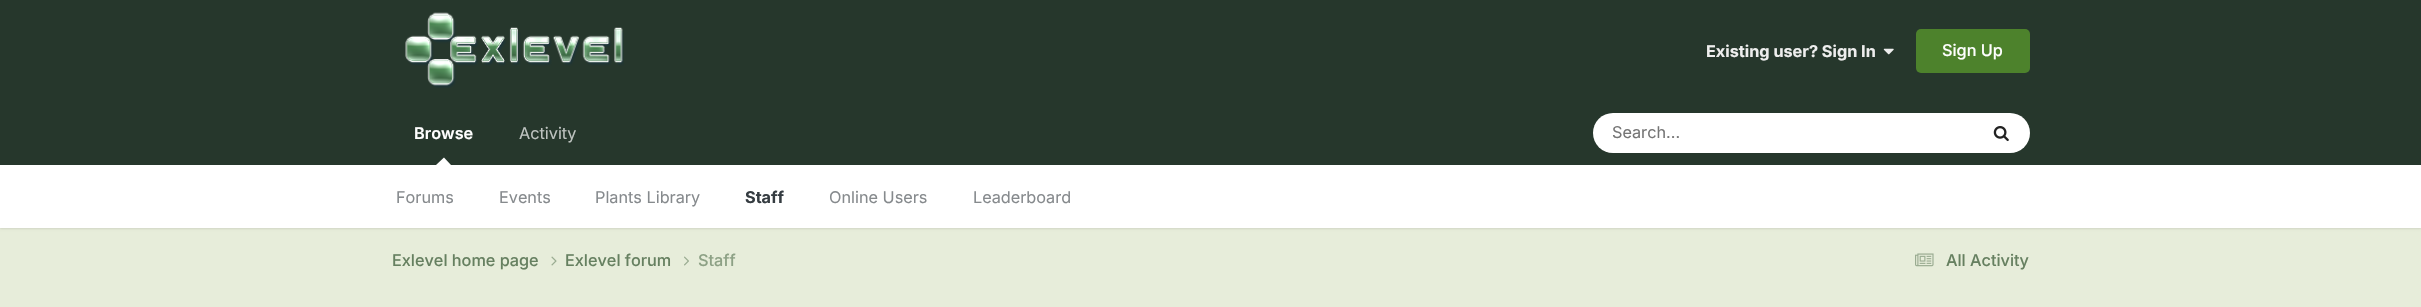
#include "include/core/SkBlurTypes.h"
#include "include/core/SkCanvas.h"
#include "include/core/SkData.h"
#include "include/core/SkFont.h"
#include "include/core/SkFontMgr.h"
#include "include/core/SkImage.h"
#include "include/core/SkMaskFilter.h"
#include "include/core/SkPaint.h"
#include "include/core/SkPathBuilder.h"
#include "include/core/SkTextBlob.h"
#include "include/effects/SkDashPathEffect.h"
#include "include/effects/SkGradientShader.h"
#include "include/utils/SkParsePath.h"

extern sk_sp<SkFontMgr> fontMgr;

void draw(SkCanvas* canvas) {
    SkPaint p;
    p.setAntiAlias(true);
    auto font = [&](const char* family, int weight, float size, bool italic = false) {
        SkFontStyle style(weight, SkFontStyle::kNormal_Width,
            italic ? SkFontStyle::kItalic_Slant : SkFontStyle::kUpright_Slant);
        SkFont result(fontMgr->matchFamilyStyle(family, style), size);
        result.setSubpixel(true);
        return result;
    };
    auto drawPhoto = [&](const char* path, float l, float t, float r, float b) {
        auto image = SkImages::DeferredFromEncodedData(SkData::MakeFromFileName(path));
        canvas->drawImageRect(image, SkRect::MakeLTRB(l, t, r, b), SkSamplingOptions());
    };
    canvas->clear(0xFFE7EDDA);
    p.setColor(0xFF26372C);
    canvas->drawRect(SkRect::MakeLTRB(0, 0, 2421, 165), p);
    drawPhoto("media/1.png", 405, 12, 624, 88);
    auto font1 = font("Inter", 700, 16.25f);
    p.setColor(0xFFEEEEEE);
    canvas->drawString("Existing user? Sign In", 1706, 57, font1, p);
    drawPhoto("media/2.png", 1883, 48, 1894, 55);
    p.setColor(0xFF4D822C);
    canvas->drawRoundRect(SkRect::MakeLTRB(1916, 29, 2030, 73), 5, 5, p);
    auto font2 = font("Inter", 500, 16.25f);
    p.setColor(0xFFFFFFFF);
    canvas->drawString("Sign Up", 1942, 56, font2, p);
    auto font3 = font("Inter", 400, 16.25f);
    p.setColor(0xFFBEC3C0);
    canvas->drawString("Activity", 519, 139, font3, p);
    auto font4 = font("Inter", 600, 16.25f);
    p.setColor(0xFFFFFFFF);
    canvas->drawString("Browse", 414, 139, font4, p);
    p.setColor(0x1A000000);
    p.setMaskFilter(SkMaskFilter::MakeBlur(kNormal_SkBlurStyle, 1));
    canvas->drawRect(SkRect::MakeLTRB(0, 166, 2421, 229), p);
    p.setMaskFilter(nullptr);
    p.setColor(0xFFFFFFFF);
    canvas->drawPath(SkPathBuilder().moveTo(451, 165).lineTo(436, 165).lineTo(444, 157.5f).close().detach(), p);
    canvas->drawRect(SkRect::MakeLTRB(0, 165, 2421, 228), p);
    p.setColor(0xFF868A8D);
    {
        const struct { const char* s; float x, y; } items[] = {
            {"Forums", 396, 203},
            {"Events", 499, 203},
            {"Plants Library", 595, 203},
        };
        for (auto [s, x, y] : items) {
            canvas->drawString(s, x, y, font3, p);
        }
    }
    p.setColor(0xFF353C41);
    canvas->drawString("Staff", 745, 203, font1, p);
    p.setColor(0xFF868A8D);
    canvas->drawString("Online Users", 829, 203, font3, p);
    canvas->drawString("Leaderboard", 973, 203, font3, p);
    p.setColor(0xFFFFFFFF);
    canvas->drawRoundRect(SkRect::MakeLTRB(1593, 113, 2030, 153), 20, 20, p);
    p.setColor(0xFF757575);
    canvas->drawString("Search...", 1612, 138, font3, p);
    drawPhoto("media/3.png", 1993, 126, 2009, 142);
    p.setColor(0xFF668060);
    canvas->drawString("Exlevel home page", 392, 266, font2, p);
    drawPhoto("media/4.png", 551, 256, 557, 266);
    canvas->drawString("Exlevel forum", 565, 266, font2, p);
    drawPhoto("media/5.png", 684, 256, 689, 266);
    p.setColor(0xFF8DA185);
    canvas->drawString("Staff", 698, 266, font2, p);
    drawPhoto("media/6.png", 1915, 253, 1934, 267);
    p.setColor(0xFF668060);
    canvas->drawString("All Activity", 1946, 266, font2, p);
}
